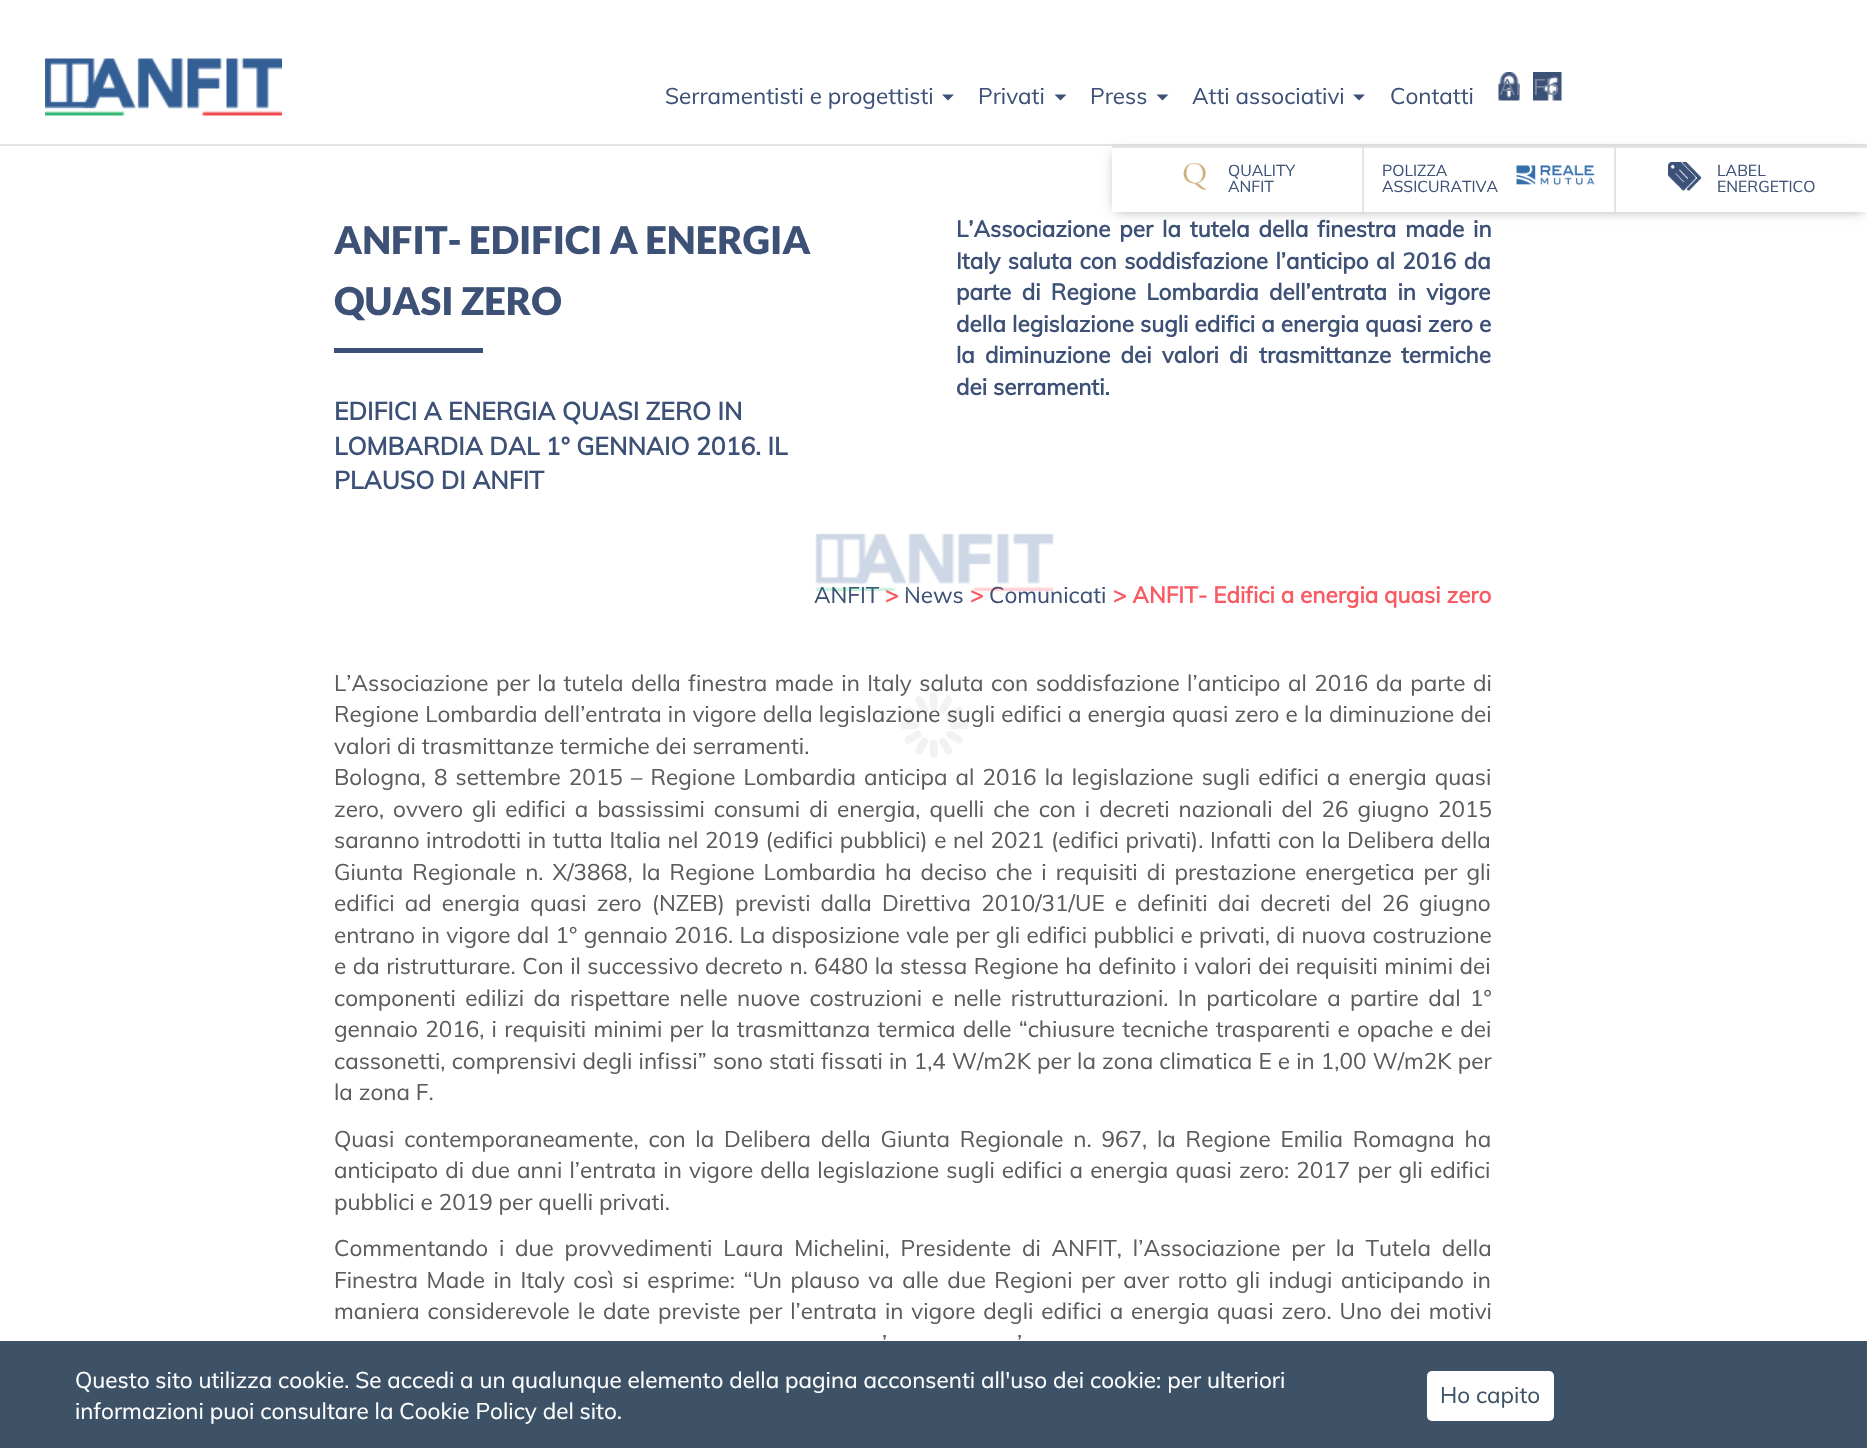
#include "include/core/SkBlurTypes.h"
#include "include/core/SkCanvas.h"
#include "include/core/SkData.h"
#include "include/core/SkFont.h"
#include "include/core/SkFontMgr.h"
#include "include/core/SkImage.h"
#include "include/core/SkMaskFilter.h"
#include "include/core/SkPaint.h"
#include "include/core/SkPathBuilder.h"
#include "include/core/SkTextBlob.h"
#include "include/effects/SkDashPathEffect.h"
#include "include/effects/SkGradientShader.h"
#include "include/utils/SkParsePath.h"

extern sk_sp<SkFontMgr> fontMgr;

void draw(SkCanvas* canvas) {
    SkPaint p;
    p.setAntiAlias(true);
    auto font = [&](const char* family, int weight, float size, bool italic = false) {
        SkFontStyle style(weight, SkFontStyle::kNormal_Width,
            italic ? SkFontStyle::kItalic_Slant : SkFontStyle::kUpright_Slant);
        SkFont result(fontMgr->matchFamilyStyle(family, style), size);
        result.setSubpixel(true);
        return result;
    };
    auto drawTracked = [&](const char* s, float x, float y, const SkFont& font, const SkPaint& ink, float letter, float word) {
        std::vector<SkGlyphID> glyphs(font.countText(s, strlen(s), SkTextEncoding::kUTF8));
        std::vector<float> xs(glyphs.size());
        font.textToGlyphs(s, strlen(s), SkTextEncoding::kUTF8, glyphs);
        font.getXPos(glyphs, xs, x);
        float extra = 0;
        for (size_t i = 0; i < glyphs.size(); i++) {
            xs[i] += extra;
            extra += letter + word * (glyphs[i] == font.unicharToGlyph(' '));
        }
        canvas->drawTextBlob(SkTextBlob::MakeFromPosHGlyphs(glyphs, xs, y, font), 0, 0, ink);
    };
    auto drawPhoto = [&](const char* path, float l, float t, float r, float b) {
        auto image = SkImages::DeferredFromEncodedData(SkData::MakeFromFileName(path));
        canvas->drawImageRect(image, SkRect::MakeLTRB(l, t, r, b), SkSamplingOptions());
    };
    canvas->clear(0xFFFFFFFF);
    p.setColor(0xFFE3E3E3);
    canvas->drawRect(SkRect::MakeLTRB(0, 144, 1867, 146), p);
    drawPhoto("media/1.png", 45, 58, 282, 116);
    auto font1 = font("Muli", 400, 22.5f);
    p.setColor(0xFF3D5177);
    canvas->drawString("Serramentisti e progettisti", 665, 104, font1, p);
    p.setColor(0xFF3C5176);
    canvas->drawPath(SkPathBuilder().moveTo(942, 94.5f).lineTo(954, 94.5f).lineTo(948, 100.5f).close().detach(), p);
    p.setColor(0xFF3D5177);
    canvas->drawString("Privati", 978, 104, font1, p);
    p.setColor(0xFF3C5176);
    canvas->drawPath(SkPathBuilder().moveTo(1054.5f, 94.5f).lineTo(1066.5f, 94.5f).lineTo(1060.5f, 100.5f).close().detach(), p);
    p.setColor(0xFF3D5177);
    canvas->drawString("Press", 1090, 104, font1, p);
    p.setColor(0xFF3C5176);
    canvas->drawPath(SkPathBuilder().moveTo(1156.5f, 94.5f).lineTo(1168.5f, 94.5f).lineTo(1162.5f, 100.5f).close().detach(), p);
    p.setColor(0xFF3D5177);
    canvas->drawString("Atti associativi", 1192, 104, font1, p);
    p.setColor(0xFF3C5176);
    canvas->drawPath(SkPathBuilder().moveTo(1353, 94.5f).lineTo(1365, 94.5f).lineTo(1359, 100.5f).close().detach(), p);
    p.setColor(0xFF3D5177);
    canvas->drawString("Contatti", 1390, 104, font1, p);
    drawPhoto("media/2.png", 1498, 72, 1520, 101);
    canvas->save();
    canvas->clipRect(SkRect::MakeLTRB(1499, 72, 1520, 101));
    p.setColor(0xFF6F7F9A);
    canvas->drawString("Ar", 1499, 95, font1, p);
    canvas->restore();
    drawPhoto("media/3.png", 1533, 72, 1562, 101);
    p.setColor(0xFF76859F);
    canvas->drawString("Fb", 1533, 95, font1, p);
    p.setColor(0xFF999999);
    p.setMaskFilter(SkMaskFilter::MakeBlur(kNormal_SkBlurStyle, 6));
    canvas->drawRect(SkRect::MakeLTRB(1116, 153, 1863, 210), p);
    p.setMaskFilter(nullptr);
    {
        const struct { float l, t, r, b; SkColor color; } items[] = {
            {1112, 148, 1867, 212, 0xFFFFFFFF},
            {1112, 146, 1867, 148, 0xFFE4E4E4},
            {1362, 147, 1364, 212, 0xFFE4E4E4},
        };
        for (auto [l, t, r, b, color] : items) {
            p.setColor(color);
            canvas->drawRect(SkRect::MakeLTRB(l, t, r, b), p);
        }
    }
    drawPhoto("media/4.png", 1183, 162, 1207, 190);
    auto font2 = font("Muli", 400, 15.75f);
    p.setColor(0xFF3D5177);
    canvas->drawString("QUALITY", 1228, 176, font2, p);
    canvas->drawString("ANFIT", 1228, 192, font2, p);
    p.setColor(0xFFE4E4E4);
    canvas->drawRect(SkRect::MakeLTRB(1614, 147, 1616, 212), p);
    p.setColor(0xFF3D5177);
    canvas->drawString("POLIZZA", 1382, 176, font2, p);
    canvas->drawString("ASSICURATIVA", 1382, 192, font2, p);
    drawPhoto("media/5.png", 1516, 165, 1595, 185);
    drawPhoto("media/6.png", 1668, 162, 1701, 191);
    canvas->drawString("LABEL", 1717, 176, font2, p);
    canvas->drawString("ENERGETICO", 1717, 192, font2, p);
    auto font3 = font("Lato", 900, 38.25f);
    canvas->drawString("ANFIT- EDIFICI A ENERGIA", 334, 254, font3, p);
    canvas->drawString("QUASI ZERO", 334, 315, font3, p);
    p.setColor(0xFF3C5177);
    canvas->drawRect(SkRect::MakeLTRB(334, 348, 483, 353), p);
    auto font4 = font("Muli", 700, 24.75f);
    p.setColor(0xFF3D5177);
    {
        const struct { const char* s; float x, y; } items[] = {
            {"EDIFICI A ENERGIA QUASI ZERO IN", 334, 420},
            {"LOMBARDIA DAL 1° GENNAIO 2016. IL", 334, 455},
            {"PLAUSO DI ANFIT", 334, 489},
        };
        for (auto [s, x, y] : items) {
            canvas->drawString(s, x, y, font4, p);
        }
    }
    auto font5 = font("Muli", 700, 22.5f);
    drawTracked("L’Associazione per la tutela della finestra made in", 956, 237, font5, p, 0, 3);
    drawTracked("Italy saluta con soddisfazione l’anticipo al 2016 da", 956, 269, font5, p, 0, 1.5f);
    drawTracked("parte di Regione Lombardia dell’entrata in vigore", 956, 300, font5, p, 0, 4.5f);
    drawTracked("della legislazione sugli edifici a energia quasi zero e", 956, 332, font5, p, 0, 0.25f);
    drawTracked("la diminuzione dei valori di", 956, 363, font5, p, 0, 4.25f);
    drawTracked("trasmittanze termiche", 1259, 363, font5, p, 0, 4);
    canvas->drawString("dei serramenti.", 956, 395, font5, p);
    canvas->drawString("ANFIT", 814, 603, font1, p);
    p.setColor(0xFFF95B65);
    canvas->drawString(">", 885, 603, font5, p);
    p.setColor(0xFF3D5177);
    canvas->drawString("News", 904, 603, font1, p);
    p.setColor(0xFFF95B65);
    canvas->drawString(">", 970, 603, font5, p);
    p.setColor(0xFF3D5177);
    canvas->drawString("Comunicati", 989, 603, font1, p);
    p.setColor(0xFFF95B65);
    canvas->drawString("> ANFIT- Edifici a energia quasi zero", 1113, 603, font5, p);
    p.setColor(0xFF5C5C5C);
    drawTracked("L’Associazione per la tutela della finestra made in Italy saluta con soddisfazione l’anticipo al 2016 da parte di", 334, 691, font1, p, 0, 1.6f);
    drawTracked("Regione Lombardia dell’entrata in vigore della legislazione sugli edifici a energia quasi zero e la diminuzione dei", 334, 722, font1, p, 0, 0.25f);
    canvas->drawString("valori di trasmittanze termiche dei serramenti.", 334, 754, font1, p);
    drawTracked("Bologna, 8 settembre 2015 – Regione Lombardia anticipa al 2016 la legislazione sugli edifici a energia quasi", 334, 785, font1, p, 0, 2.25f);
    drawTracked("zero, ovvero gli edifici a bassissimi consumi di energia, quelli che con i decreti nazionali del 26 giugno 2015", 334, 817, font1, p, 0, 3.1f);
    drawTracked("saranno introdotti in tutta Italia nel 2019 (edifici pubblici) e nel 2021 (edifici privati). Infatti con la Delibera della", 334, 848, font1, p, 0, 0.75f);
    drawTracked("Giunta Regionale n. X/3868, la Regione Lombardia ha deciso che i requisiti di prestazione energetica per gli", 334, 880, font1, p, 0, 3.1f);
    drawTracked("edifici ad energia quasi zero (NZEB) previsti dalla Direttiva 2010/31/UE e definiti dai decreti del 26 giugno", 334, 911, font1, p, 0, 4.25f);
    drawTracked("entrano in vigore dal 1° gennaio 2016. La disposizione vale per gli edifici pubblici e privati, di nuova costruzione", 334, 943, font1, p, 0, 0.5f);
    drawTracked("e da ristrutturare. Con il successivo decreto n. 6480 la stessa Regione ha definito i valori dei requisiti minimi dei", 334, 974, font1, p, 0, 0.6f);
    drawTracked("componenti edilizi da rispettare nelle nuove costruzioni e nelle ristrutturazioni. In particolare a partire dal 1°", 334, 1006, font1, p, 0, 3.5f);
    drawTracked("gennaio 2016, i requisiti minimi per la trasmittanza termica delle “chiusure tecniche trasparenti e opache e dei", 334, 1037, font1, p, 0, 1.4f);
    drawTracked("cassonetti, comprensivi degli infissi” sono stati fissati in 1,4 W/m2K per la zona climatica E e in 1,00 W/m2K per", 334, 1069, font1, p, 0, 0.25f);
    canvas->drawString("la zona F.", 334, 1100, font1, p);
    drawTracked("Quasi contemporaneamente, con la Delibera della Giunta Regionale n. 967, la Regione Emilia Romagna ha", 334, 1147, font1, p, 0, 3.9f);
    drawTracked("anticipato di due anni l’entrata in vigore della legislazione sugli edifici a energia quasi zero: 2017 per gli edifici", 334, 1178, font1, p, 0, 1.25f);
    canvas->drawString("pubblici e 2019 per quelli privati.", 334, 1210, font1, p);
    drawTracked("Commentando i due provvedimenti Laura Michelini, Presidente di ANFIT, l’Associazione per la Tutela della", 334, 1256, font1, p, 0, 4.9f);
    drawTracked("Finestra Made in Italy così si esprime: “Un plauso va alle due Regioni per aver rotto gli indugi anticipando in", 334, 1288, font1, p, 0, 2.6f);
    drawTracked("maniera considerevole le date previste per l’entrata in vigore degli edifici a energia quasi zero. Uno dei motivi", 334, 1319, font1, p, 0, 2);
    drawTracked("’", 882, 1351, font1, p, 0, 1);
    drawTracked("’", 1017, 1351, font1, p, 0, 1);
    drawPhoto("media/7.png", 815, 533, 1054, 592);
    p.setColor(0x0D000000);
    canvas->drawPath(SkPathBuilder().moveTo(916, 729).cubicTo(913.5f, 729, 904.5f, 729.5f, 902.5f, 729).cubicTo(901.5f, 728.5f, 901, 727, 901, 726).cubicTo(900.5f, 721, 903.5f, 721.5f, 908, 721.5f).cubicTo(910, 721.5f, 915, 721, 917, 721.5f).cubicTo(920, 723, 919.5f, 729, 916, 729).close().moveTo(916.5f, 719.5f).cubicTo(914, 718.5f, 906, 714, 905, 712.5f).cubicTo(904.5f, 711.5f, 904, 710.5f, 905, 709.5f).cubicTo(907.5f, 705, 909.5f, 707, 913, 709).cubicTo(915, 710, 919.5f, 712, 921, 714).cubicTo(923, 716.5f, 919.5f, 721.5f, 916.5f, 719.5f).close().detach(), p);
    canvas->drawPath(SkPathBuilder().moveTo(921.5f, 711.5f).cubicTo(920.5f, 709.5f, 915.5f, 702, 915, 700).cubicTo(915, 699, 915.5f, 697.5f, 916.5f, 697).cubicTo(921, 694.5f, 922, 697, 924, 701).cubicTo(925, 703, 928, 707, 928.5f, 709).cubicTo(929, 712, 923.5f, 714.5f, 921.5f, 711.5f).close().detach(), p);
    p.setColor(0xFFF2F2F2);
    canvas->drawPath(SkPathBuilder().moveTo(930, 707).cubicTo(930, 705, 929.5f, 696, 930, 694).cubicTo(930.5f, 693, 932, 692.5f, 933, 692).cubicTo(938, 692, 937.5f, 695, 937.5f, 699).cubicTo(937.5f, 701.5f, 938, 706.5f, 937.5f, 708.5f).cubicTo(936, 711.5f, 930, 711, 930, 707).close().moveTo(939.5f, 708).cubicTo(940.5f, 705.5f, 945, 697.5f, 946.5f, 696.5f).cubicTo(947.5f, 696, 948.5f, 695.5f, 949.5f, 696.5f).cubicTo(954, 699, 952, 701, 950, 704.5f).cubicTo(949, 706.5f, 947, 711, 945, 712.5f).cubicTo(942.5f, 714.5f, 937.5f, 711, 939.5f, 708).close().detach(), p);
    p.setColor(0x0D000000);
    canvas->drawPath(SkPathBuilder().moveTo(947.5f, 713).cubicTo(949.5f, 712, 957, 707, 959, 706.5f).cubicTo(960, 706.5f, 961.5f, 707, 962, 708).cubicTo(964.5f, 712.5f, 962, 713.5f, 958, 715.5f).cubicTo(956, 716.5f, 952, 719.5f, 950, 720).cubicTo(947, 720.5f, 944.5f, 715, 947.5f, 713).close().detach(), p);
    canvas->drawRect(SkRect::MakeLTRB(950, 722, 968, 729), p);
    p.setColor(0xFFF2F2F2);
    canvas->drawPath(SkPathBuilder().moveTo(951, 731).cubicTo(953.5f, 732, 961.5f, 736.5f, 962.5f, 738).cubicTo(963, 739, 963.5f, 740, 962.5f, 741).cubicTo(960, 745.5f, 958, 743.5f, 954.5f, 741.5f).cubicTo(952.5f, 740.5f, 948, 738.5f, 946.5f, 736.5f).cubicTo(944.5f, 734, 948, 729, 951, 731).close().detach(), p);
    canvas->drawPath(SkPathBuilder().moveTo(946, 739).cubicTo(947, 741, 952, 748.5f, 952.5f, 750.5f).cubicTo(952.5f, 751.5f, 952, 753, 951, 753.5f).cubicTo(946.5f, 756, 945.5f, 753.5f, 943.5f, 749.5f).cubicTo(942.5f, 747.5f, 939.5f, 743.5f, 939, 741.5f).cubicTo(938.5f, 738.5f, 944, 736, 946, 739).close().moveTo(937.5f, 743).cubicTo(937.5f, 745.5f, 938, 754.5f, 937.5f, 756.5f).cubicTo(937, 757.5f, 935.5f, 758, 934.5f, 758).cubicTo(929.5f, 758.5f, 930, 755.5f, 930, 751).cubicTo(930, 749, 929.5f, 744, 930, 742).cubicTo(931.5f, 739, 937.5f, 739.5f, 937.5f, 743).close().moveTo(928, 742.5f).cubicTo(927, 745, 922.5f, 753, 921, 754).cubicTo(920, 754.5f, 919, 755, 918, 754).cubicTo(913.5f, 751.5f, 915.5f, 749.5f, 917.5f, 746).cubicTo(918.5f, 744, 920.5f, 739.5f, 922.5f, 738).cubicTo(925, 736, 930, 739.5f, 928, 742.5f).close().detach(), p);
    canvas->drawPath(SkPathBuilder().moveTo(920, 737.5f).cubicTo(918, 738.5f, 910.5f, 743.5f, 908.5f, 744).cubicTo(907.5f, 744, 906, 743.5f, 905.5f, 742.5f).cubicTo(903, 738, 905.5f, 737, 909.5f, 735).cubicTo(911.5f, 734, 915.5f, 731, 917.5f, 730.5f).cubicTo(920.5f, 730, 923, 735.5f, 920, 737.5f).close().detach(), p);
    p.setColor(0xFF3D5267);
    canvas->drawRect(SkRect::MakeLTRB(0, 1341, 1867, 1448), p);
    p.setColor(0xFFFFFFFF);
    canvas->drawString("Questo sito utilizza cookie. Se accedi a un qualunque elemento della pagina acconsenti all'uso dei cookie: per ulteriori", 75, 1388, font1, p);
    canvas->drawString("informazioni puoi consultare la Cookie Policy del sito.", 75, 1419, font1, p);
    canvas->drawRoundRect(SkRect::MakeLTRB(1427, 1371, 1554, 1421), 5, 5, p);
    p.setColor(0xFF3D5267);
    canvas->drawString("Ho capito", 1440, 1403, font1, p);
}
